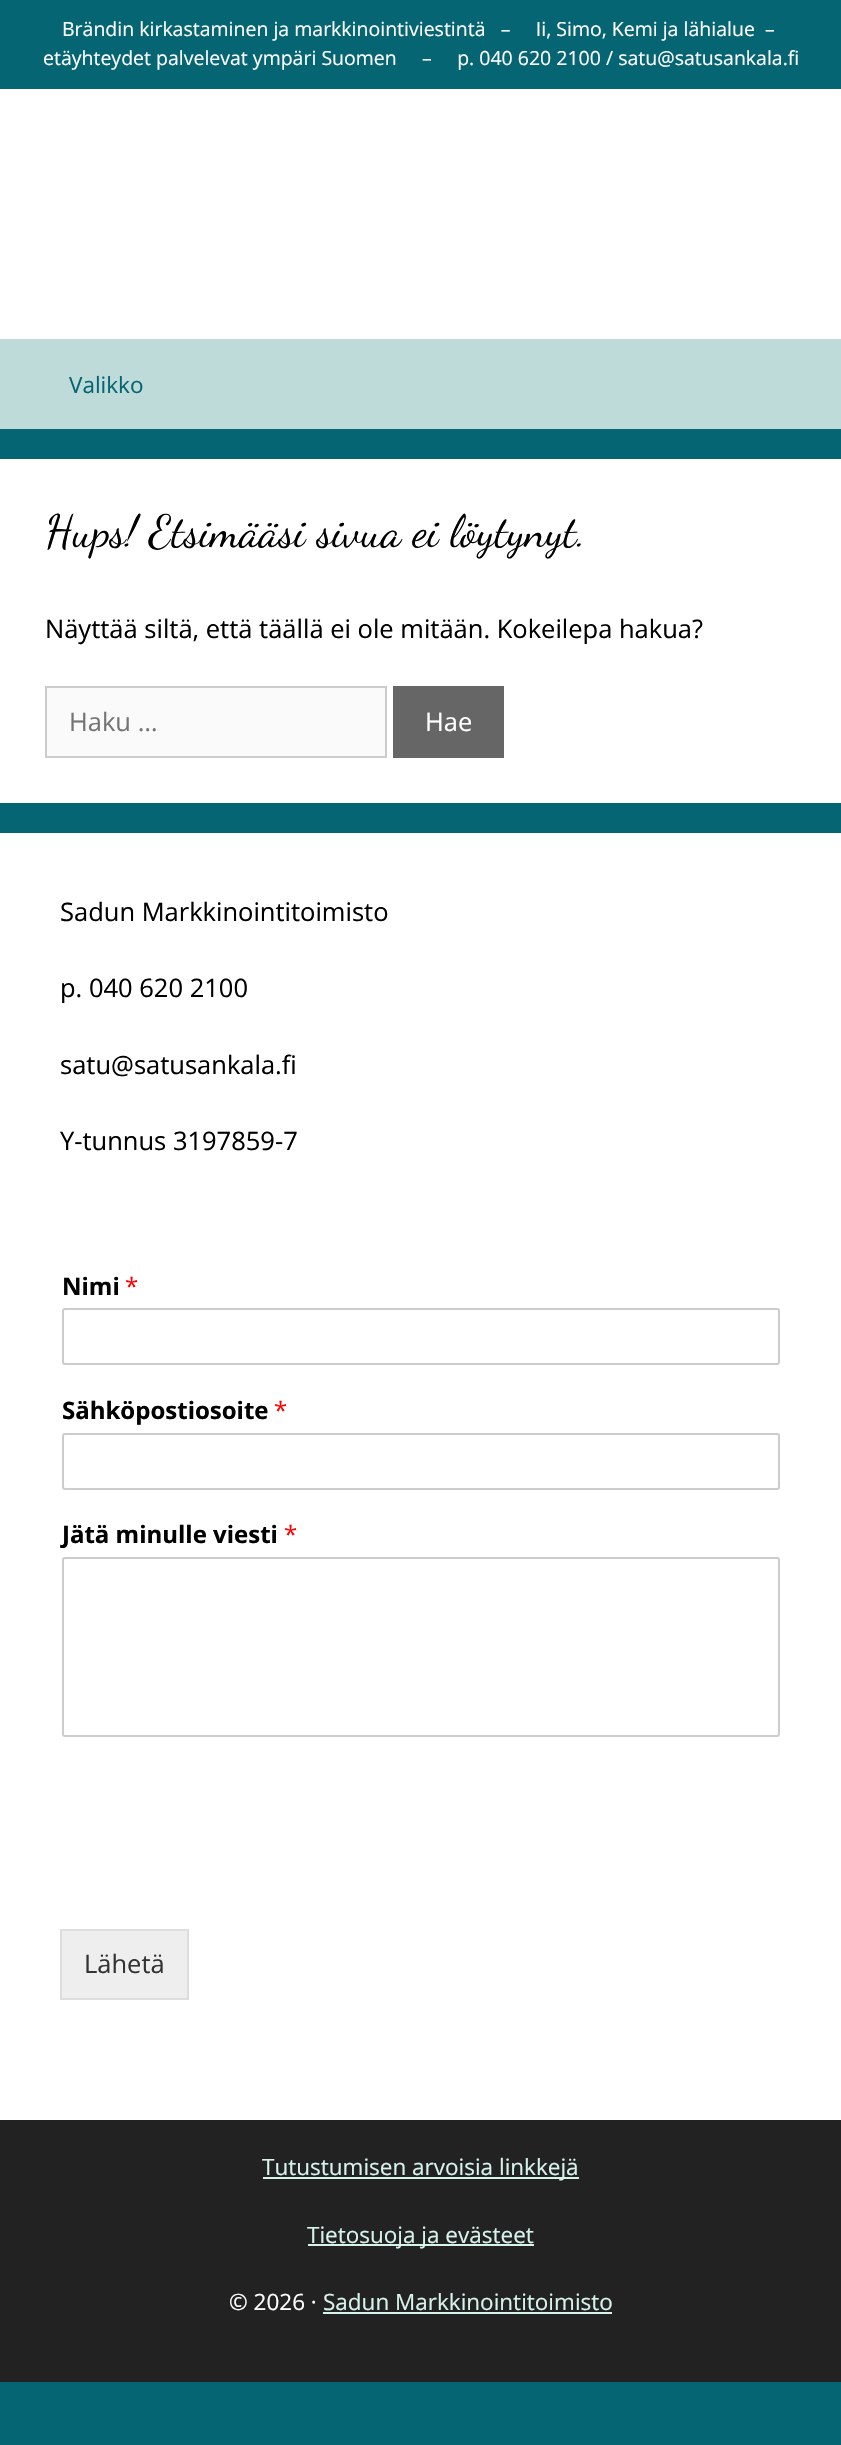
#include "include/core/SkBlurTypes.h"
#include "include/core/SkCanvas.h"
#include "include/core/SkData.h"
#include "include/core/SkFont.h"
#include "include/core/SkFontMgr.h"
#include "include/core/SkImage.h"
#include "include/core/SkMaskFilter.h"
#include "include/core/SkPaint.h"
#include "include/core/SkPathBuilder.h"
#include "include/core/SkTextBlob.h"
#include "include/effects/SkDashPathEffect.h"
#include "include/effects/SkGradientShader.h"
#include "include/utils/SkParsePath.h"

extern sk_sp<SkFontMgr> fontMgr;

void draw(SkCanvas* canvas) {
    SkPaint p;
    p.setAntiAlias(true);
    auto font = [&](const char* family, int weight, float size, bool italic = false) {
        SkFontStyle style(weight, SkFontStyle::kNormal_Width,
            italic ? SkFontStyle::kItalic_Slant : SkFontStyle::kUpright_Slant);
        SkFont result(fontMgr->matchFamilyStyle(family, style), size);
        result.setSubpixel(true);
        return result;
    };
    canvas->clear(0xFF056572);
    auto font1 = font("Open Sans", 400, 19.5f);
    p.setColor(0xFFFFFFFF);
    canvas->drawString("Brändin kirkastaminen ja markkinointiviestintä   –     Ii, Simo, Kemi ja lähialue  –", 62, 36, font1, p);
    canvas->drawString("etäyhteydet palvelevat ympäri Suomen     –     p. 040 620 2100 / satu@satusankala.fi", 43, 65, font1, p);
    canvas->drawRect(SkRect::MakeLTRB(0, 89, 841, 339), p);
    p.setColor(0xFFBEDBD9);
    canvas->drawRect(SkRect::MakeLTRB(0, 339, 841, 429), p);
    auto font2 = font("Open Sans", 400, 22.5f);
    p.setColor(0xFF056572);
    canvas->drawString("Valikko", 69, 393, font2, p);
    p.setColor(0xFFFFFFFF);
    canvas->drawRect(SkRect::MakeLTRB(0, 459, 841, 803), p);
    auto font3 = font("Dancing Script", 400, 45);
    p.setColor(0xFF000000);
    canvas->drawString("Hups! Etsimääsi sivua ei löytynyt.", 45, 546, font3, p);
    auto font4 = font("Open Sans", 400, 25.5f);
    canvas->drawString("Näyttää siltä, että täällä ei ole mitään. Kokeilepa hakua?", 45, 638, font4, p);
    p.setColor(0xFFFAFAFA);
    canvas->drawRect(SkRect::MakeLTRB(46, 687, 386, 757), p);
    p.setStyle(SkPaint::kStroke_Style);
    p.setStrokeWidth(2);
    p.setColor(0xFFCCCCCC);
    canvas->drawRect(SkRect::MakeLTRB(46, 687, 386, 757), p);
    p.setStyle(SkPaint::kFill_Style);
    p.setColor(0xFF757575);
    canvas->drawString("Haku …", 69, 731, font4, p);
    p.setColor(0xFF666666);
    canvas->drawRect(SkRect::MakeLTRB(393, 686, 504, 758), p);
    p.setColor(0xFFFFFFFF);
    canvas->drawString("Hae", 425, 731, font4, p);
    canvas->drawRect(SkRect::MakeLTRB(0, 833, 841, 2120), p);
    p.setColor(0xFF000000);
    {
        const struct { const char* s; float x, y; } items[] = {
            {"Sadun Markkinointitoimisto", 60, 921},
            {"p. 040 620 2100", 60, 997},
            {"satu@satusankala.fi", 60, 1074},
            {"Y-tunnus 3197859-7", 60, 1150},
        };
        for (auto [s, x, y] : items) {
            canvas->drawString(s, x, y, font4, p);
        }
    }
    auto font5 = font("Open Sans", 700, 24);
    canvas->drawString("Nimi", 62, 1295, font5, p);
    auto font6 = font("Open Sans", 400, 24);
    p.setColor(0xFFFF0000);
    canvas->drawString("*", 125, 1295, font6, p);
    p.setStyle(SkPaint::kStroke_Style);
    p.setColor(0xFFCCCCCC);
    canvas->drawRoundRect(SkRect::MakeLTRB(63, 1309, 779, 1364), 2, 2, p);
    p.setStyle(SkPaint::kFill_Style);
    p.setColor(0xFF000000);
    canvas->drawString("Sähköpostiosoite", 62, 1419, font5, p);
    p.setColor(0xFFFF0000);
    canvas->drawString("*", 274, 1419, font6, p);
    p.setStyle(SkPaint::kStroke_Style);
    p.setColor(0xFFCCCCCC);
    canvas->drawRoundRect(SkRect::MakeLTRB(63, 1434, 779, 1489), 2, 2, p);
    canvas->save();
    canvas->clipRect(SkRect::MakeLTRB(60, 1505, 782, 1752));
    p.setStyle(SkPaint::kFill_Style);
    p.setColor(0xFF000000);
    canvas->drawString("Jätä minulle viesti", 62, 1543, font5, p);
    canvas->restore();
    p.setColor(0xFFFF0000);
    canvas->drawString("*", 284, 1543, font6, p);
    p.setStyle(SkPaint::kStroke_Style);
    p.setColor(0xFFCCCCCC);
    canvas->drawRoundRect(SkRect::MakeLTRB(63, 1558, 779, 1736), 2, 2, p);
    p.setStyle(SkPaint::kFill_Style);
    p.setColor(0xFFEEEEEE);
    canvas->drawRect(SkRect::MakeLTRB(61, 1930, 188, 1999), p);
    p.setStyle(SkPaint::kStroke_Style);
    p.setColor(0xFFDDDDDD);
    canvas->drawRect(SkRect::MakeLTRB(61, 1930, 188, 1999), p);
    p.setStyle(SkPaint::kFill_Style);
    p.setColor(0xFF333333);
    canvas->drawString("Lähetä", 84, 1973, font4, p);
    p.setColor(0xFF222222);
    canvas->drawRect(SkRect::MakeLTRB(0, 2120, 841, 2382), p);
    p.setColor(0xFFD6F4EC);
    canvas->drawRect(SkRect::MakeLTRB(263, 2177, 579, 2179), p);
    canvas->drawString("Tutustumisen arvoisia linkkejä", 262, 2175, font2, p);
    canvas->drawRect(SkRect::MakeLTRB(308, 2244, 534, 2246), p);
    canvas->drawString("Tietosuoja ja evästeet", 307, 2243, font2, p);
    p.setColor(0xFFFFFFFF);
    canvas->drawString("© 2026 ·", 229, 2310, font2, p);
    p.setColor(0xFFD6F4EC);
    canvas->drawString("Sadun Markkinointitoimisto", 323, 2310, font2, p);
    canvas->drawRect(SkRect::MakeLTRB(323, 2312, 612, 2314), p);
}
